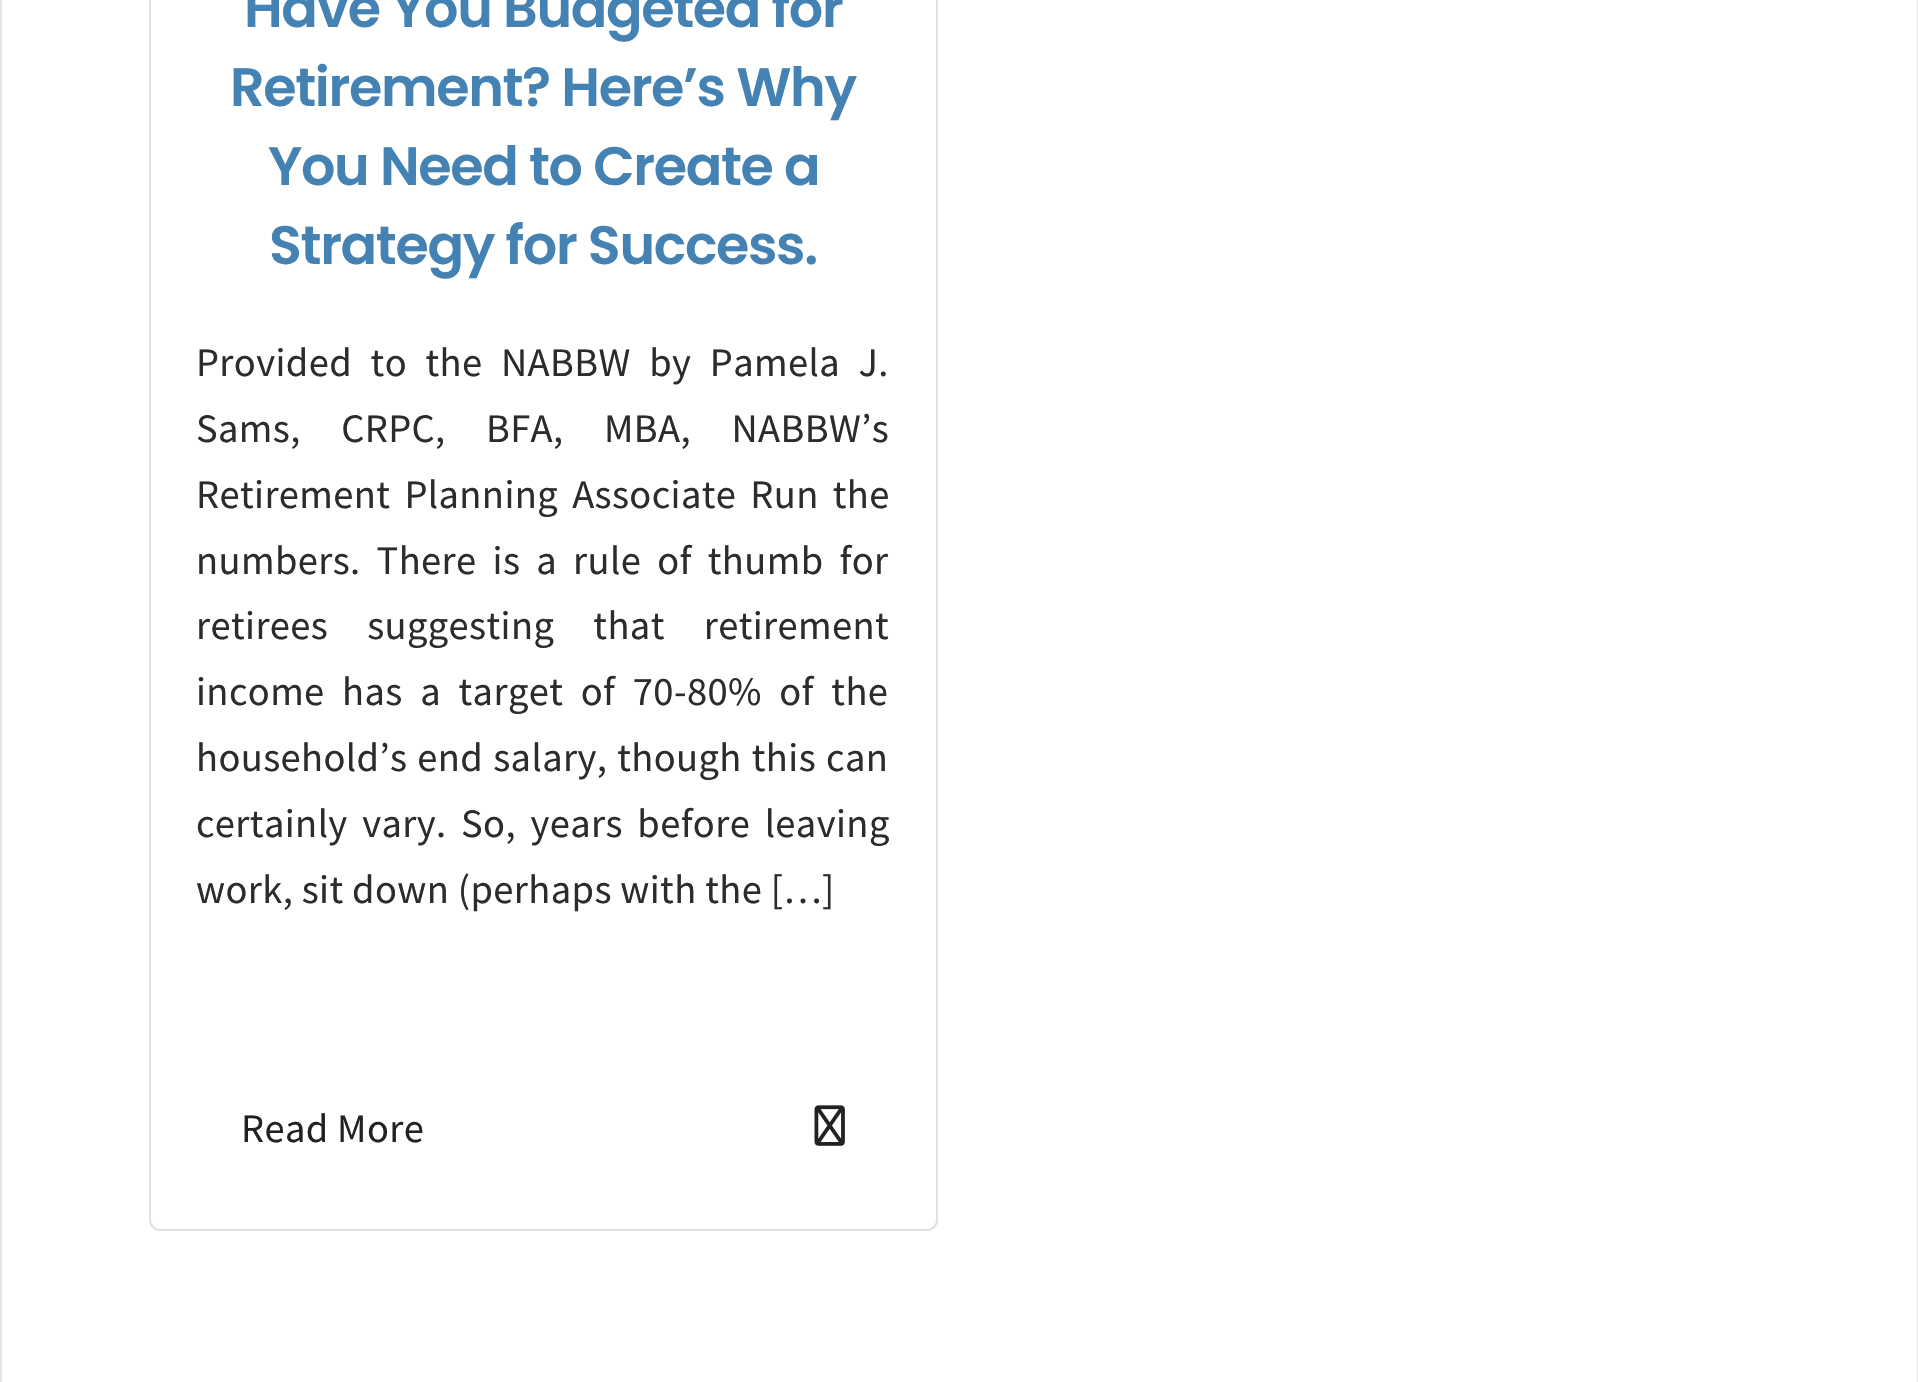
#include "include/core/SkBlurTypes.h"
#include "include/core/SkCanvas.h"
#include "include/core/SkData.h"
#include "include/core/SkFont.h"
#include "include/core/SkFontMgr.h"
#include "include/core/SkImage.h"
#include "include/core/SkMaskFilter.h"
#include "include/core/SkPaint.h"
#include "include/core/SkPathBuilder.h"
#include "include/core/SkTextBlob.h"
#include "include/effects/SkDashPathEffect.h"
#include "include/effects/SkGradientShader.h"
#include "include/utils/SkParsePath.h"

extern sk_sp<SkFontMgr> fontMgr;

void draw(SkCanvas* canvas) {
    SkPaint p;
    p.setAntiAlias(true);
    auto font = [&](const char* family, int weight, float size, bool italic = false) {
        SkFontStyle style(weight, SkFontStyle::kNormal_Width,
            italic ? SkFontStyle::kItalic_Slant : SkFontStyle::kUpright_Slant);
        SkFont result(fontMgr->matchFamilyStyle(family, style), size);
        result.setSubpixel(true);
        return result;
    };
    auto drawTracked = [&](const char* s, float x, float y, const SkFont& font, const SkPaint& ink, float letter, float word) {
        std::vector<SkGlyphID> glyphs(font.countText(s, strlen(s), SkTextEncoding::kUTF8));
        std::vector<float> xs(glyphs.size());
        font.textToGlyphs(s, strlen(s), SkTextEncoding::kUTF8, glyphs);
        font.getXPos(glyphs, xs, x);
        float extra = 0;
        for (size_t i = 0; i < glyphs.size(); i++) {
            xs[i] += extra;
            extra += letter + word * (glyphs[i] == font.unicharToGlyph(' '));
        }
        canvas->drawTextBlob(SkTextBlob::MakeFromPosHGlyphs(glyphs, xs, y, font), 0, 0, ink);
    };
    auto drawPhoto = [&](const char* path, float l, float t, float r, float b) {
        auto image = SkImages::DeferredFromEncodedData(SkData::MakeFromFileName(path));
        canvas->drawImageRect(image, SkRect::MakeLTRB(l, t, r, b), SkSamplingOptions());
    };
    canvas->clear(0xFFFFFFFF);
    p.setColor(0xFFE6E6E6);
    canvas->drawRect(SkRect::MakeLTRB(1917, 0, 1918, 1382), p);
    canvas->drawRect(SkRect::MakeLTRB(0, 0, 2, 1382), p);
    p.setStyle(SkPaint::kStroke_Style);
    p.setStrokeWidth(2);
    p.setColor(0xFFE1E1E1);
    canvas->drawRoundRect(SkRect::MakeLTRB(150, -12, 937, 1230), 10, 10, p);
    auto font1 = font("Poppins", 600, 54);
    p.setStyle(SkPaint::kFill_Style);
    p.setColor(0xFF4582B4);
    {
        const struct { const char* s; float x, y; } items[] = {
            {"Have You Budgeted for", 244, 27},
            {"Retirement? Here’s Why", 230, 106},
            {"You Need to Create a", 268, 185},
            {"Strategy for Success.", 269, 264},
        };
        for (auto [s, x, y] : items) {
            drawTracked(s, x, y, font1, p, -1.35f, 0);
        }
    }
    auto font2 = font("Source Sans Pro", 400, 40.5f);
    p.setColor(0xFF2C2C2C);
    drawTracked("Provided to the NABBW by Pamela J.", 196, 376, font2, p, 0.4f, 10);
    drawTracked("Sams, CRPC, BFA, MBA, NABBW’s", 196, 442, font2, p, 0.4f, 32);
    drawTracked("Retirement Planning Associate Run the", 196, 508, font2, p, 0.4f, 5.5f);
    drawTracked("numbers. There is a rule of thumb for", 196, 574, font2, p, 0.4f, 7.5f);
    drawTracked("retirees suggesting that retirement", 196, 639, font2, p, 0.4f, 30.5f);
    drawTracked("income has a target of 70-80% of the", 196, 705, font2, p, 0.4f, 9);
    drawTracked("household’s end salary, though this can", 196, 771, font2, p, 0.4f, 1.5f);
    drawTracked("certainly vary. So, years before leaving", 196, 837, font2, p, 0.4f, 6);
    drawTracked("work, sit down (perhaps with the […]", 196, 903, font2, p, 0.4f, 0);
    p.setColor(0xFF222222);
    drawTracked("Read More", 241, 1142, font2, p, 0.4f, 0);
    drawPhoto("media/1.png", 814, 1105, 845, 1146);
}
